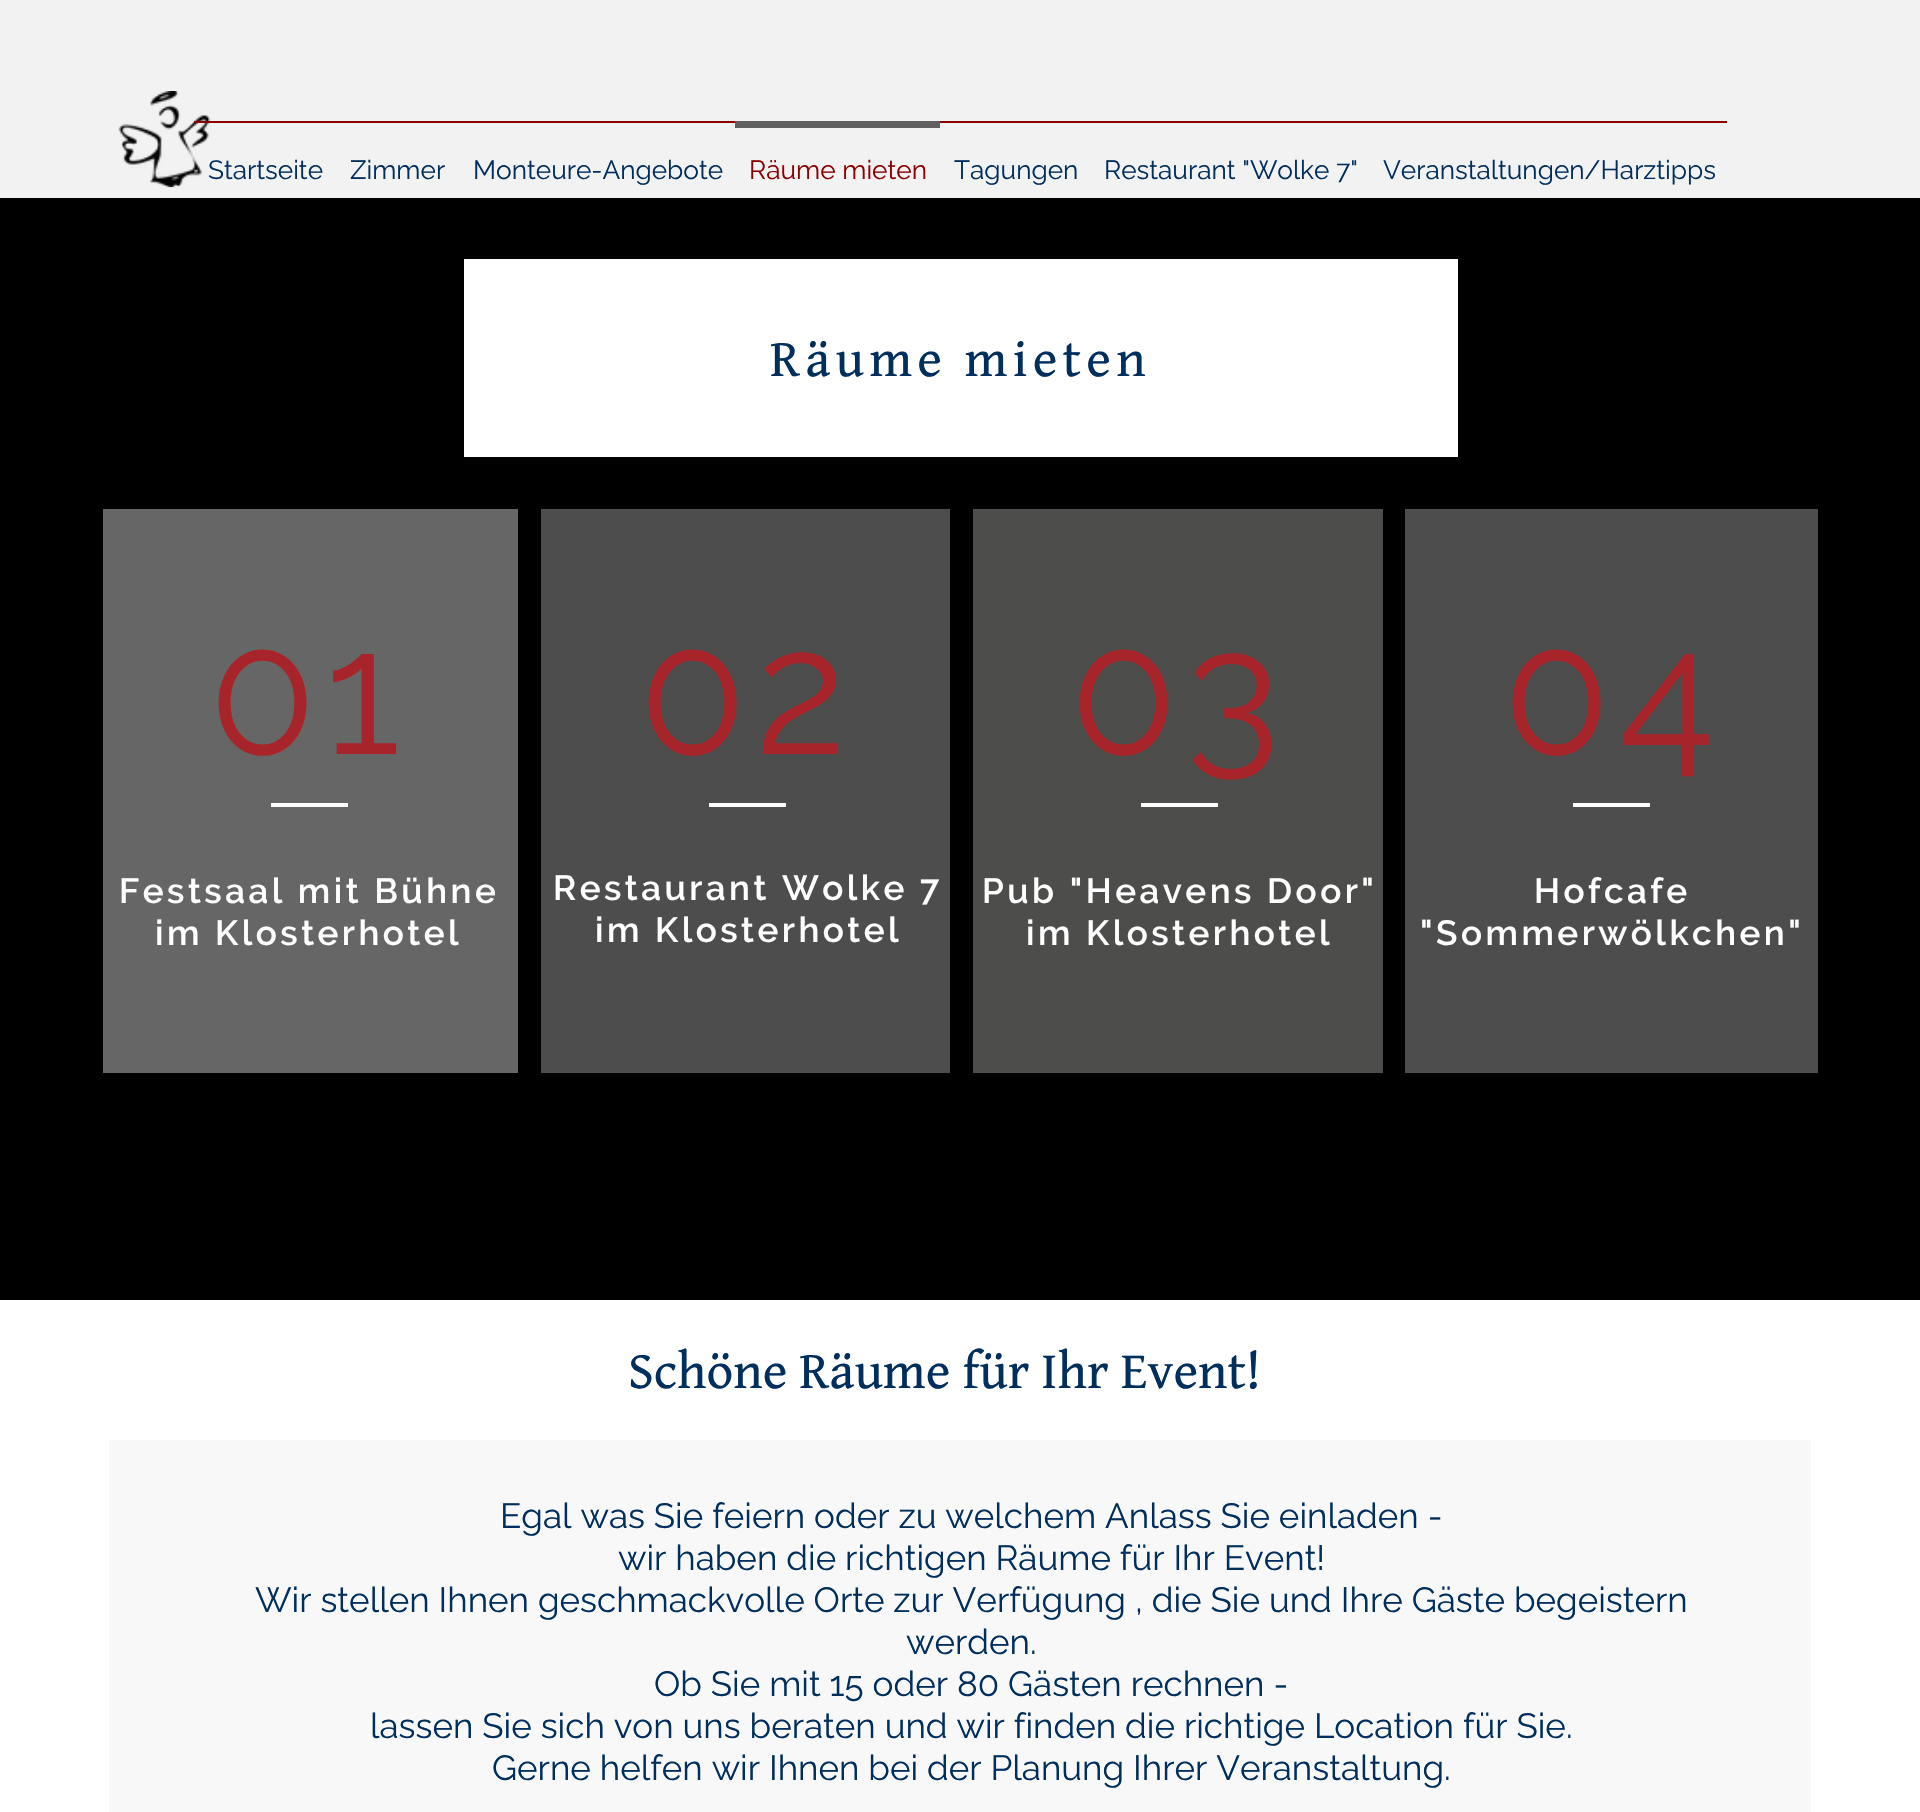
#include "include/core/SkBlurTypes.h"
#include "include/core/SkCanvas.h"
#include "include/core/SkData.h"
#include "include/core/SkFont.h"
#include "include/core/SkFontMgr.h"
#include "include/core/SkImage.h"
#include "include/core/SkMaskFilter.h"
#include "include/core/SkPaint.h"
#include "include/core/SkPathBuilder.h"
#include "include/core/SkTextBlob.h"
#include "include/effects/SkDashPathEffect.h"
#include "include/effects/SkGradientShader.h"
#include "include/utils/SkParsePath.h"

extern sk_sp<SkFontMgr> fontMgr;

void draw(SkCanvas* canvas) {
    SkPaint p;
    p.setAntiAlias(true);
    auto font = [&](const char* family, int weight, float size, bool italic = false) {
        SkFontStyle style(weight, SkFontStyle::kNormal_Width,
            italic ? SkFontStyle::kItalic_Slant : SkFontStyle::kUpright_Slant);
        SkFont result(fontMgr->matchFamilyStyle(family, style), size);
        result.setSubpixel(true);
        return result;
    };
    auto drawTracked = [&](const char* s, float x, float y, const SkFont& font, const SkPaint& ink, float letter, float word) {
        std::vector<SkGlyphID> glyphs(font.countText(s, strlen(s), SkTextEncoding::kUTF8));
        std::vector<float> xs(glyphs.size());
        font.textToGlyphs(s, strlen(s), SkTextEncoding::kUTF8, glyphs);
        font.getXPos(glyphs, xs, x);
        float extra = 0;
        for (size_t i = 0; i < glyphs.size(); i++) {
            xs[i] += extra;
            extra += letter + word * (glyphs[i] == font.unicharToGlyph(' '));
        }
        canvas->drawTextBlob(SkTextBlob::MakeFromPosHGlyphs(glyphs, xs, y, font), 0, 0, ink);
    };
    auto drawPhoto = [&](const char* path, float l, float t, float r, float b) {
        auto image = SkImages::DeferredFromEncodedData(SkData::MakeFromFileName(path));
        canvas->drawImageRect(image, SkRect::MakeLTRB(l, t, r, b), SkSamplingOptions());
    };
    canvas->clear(0xFFFFFFFF);
    p.setColor(0xFFF2F2F2);
    canvas->drawRect(SkRect::MakeLTRB(0, 0, 1920, 198), p);
    drawPhoto("media/1.png", 118, 91, 211, 188);
    p.setColor(0xFF8B0000);
    canvas->drawRect(SkRect::MakeLTRB(194, 121, 735, 123), p);
    auto font1 = font("Raleway", 400, 26.25f);
    p.setColor(0xFF002E5D);
    {
        const struct { const char* s; float x, y; } items[] = {
            {"Startseite", 208, 179},
            {"Zimmer", 350, 179},
            {"Monteure-Angebote", 473, 179},
        };
        for (auto [s, x, y] : items) {
            canvas->drawString(s, x, y, font1, p);
        }
    }
    p.setColor(0xFF606060);
    canvas->drawRect(SkRect::MakeLTRB(735, 121, 940, 128), p);
    p.setColor(0xFF8B0000);
    canvas->drawString("Räume mieten", 749, 179, font1, p);
    canvas->drawRect(SkRect::MakeLTRB(940, 121, 1727, 123), p);
    p.setColor(0xFF002E5D);
    {
        const struct { const char* s; float x, y; } items[] = {
            {"Tagungen", 954, 179},
            {"Restaurant \"Wolke 7\"", 1104, 179},
            {"Veranstaltungen/Harztipps", 1383, 179},
        };
        for (auto [s, x, y] : items) {
            canvas->drawString(s, x, y, font1, p);
        }
    }
    p.setColor(0xFF000000);
    canvas->drawRect(SkRect::MakeLTRB(0, 198, 1920, 1300), p);
    p.setColor(0xFFFFFFFF);
    canvas->drawRect(SkRect::MakeLTRB(464, 259, 1458, 457), p);
    auto font2 = font("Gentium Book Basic", 400, 52.5f);
    p.setColor(0xFF002E5D);
    drawTracked("Räume mieten", 770, 376, font2, p, 5.25f, 0);
    p.setColor(0xFF666666);
    canvas->drawRect(SkRect::MakeLTRB(103, 509, 518, 1073), p);
    auto font3 = font("Raleway", 400, 175);
    p.setColor(0xFFA7252A);
    drawTracked("01", 209, 754, font3, p, 9, 0);
    p.setColor(0xFFFFFFFF);
    canvas->drawRect(SkRect::MakeLTRB(271, 803, 348, 807), p);
    auto font4 = font("Raleway", 600, 35);
    drawTracked("Festsaal mit Bühne", 119, 903, font4, p, 3.5f, 0);
    drawTracked("im Klosterhotel", 155, 945, font4, p, 3.5f, 0);
    p.setColor(0xFF4D4D4D);
    canvas->drawRect(SkRect::MakeLTRB(541, 509, 950, 1073), p);
    p.setColor(0xFFA7252A);
    drawTracked("02", 639, 754, font3, p, 9, 0);
    p.setColor(0xFFFFFFFF);
    canvas->drawRect(SkRect::MakeLTRB(709, 803, 786, 807), p);
    drawTracked("Restaurant Wolke 7", 553, 900, font4, p, 3.5f, 0);
    drawTracked("im Klosterhotel", 595, 942, font4, p, 3.5f, 0);
    p.setColor(0xFF4D4D4C);
    canvas->drawRect(SkRect::MakeLTRB(973, 509, 1383, 1073), p);
    p.setColor(0xFFA7252A);
    drawTracked("03", 1070, 754, font3, p, 9, 0);
    p.setColor(0xFFFFFFFF);
    canvas->drawRect(SkRect::MakeLTRB(1141, 803, 1218, 807), p);
    drawTracked("Pub \"Heavens Door\"", 982, 903, font4, p, 3.5f, 0);
    drawTracked("im Klosterhotel", 1026, 945, font4, p, 3.5f, 0);
    p.setColor(0xFF4D4D4D);
    canvas->drawRect(SkRect::MakeLTRB(1405, 509, 1818, 1073), p);
    p.setColor(0xFFA7252A);
    drawTracked("04", 1503, 754, font3, p, 9, 0);
    p.setColor(0xFFFFFFFF);
    canvas->drawRect(SkRect::MakeLTRB(1573, 803, 1650, 807), p);
    drawTracked("Hofcafe", 1534, 903, font4, p, 3.5f, 0);
    drawTracked("\"Sommerwölkchen\"", 1420, 945, font4, p, 3.5f, 0);
    p.setColor(0xFF002E5D);
    canvas->drawString("Schöne Räume für Ihr Event!", 628, 1388, font2, p);
    p.setColor(0xFFF8F8F8);
    canvas->drawRect(SkRect::MakeLTRB(109, 1440, 1811, 1812), p);
    auto font5 = font("Raleway", 400, 35);
    p.setColor(0xFF002E5D);
    {
        const struct { const char* s; float x, y; } items[] = {
            {"Egal was Sie feiern oder zu welchem Anlass Sie einladen -", 500, 1528},
            {"wir haben die richtigen Räume für Ihr Event!", 618, 1570},
            {"Wir stellen Ihnen geschmackvolle Orte zur Verfügung , die Sie und Ihre Gäste begeistern", 255, 1612},
            {"werden.", 906, 1654},
            {"Ob Sie mit 15 oder 80 Gästen rechnen -", 654, 1696},
            {"lassen Sie sich von uns beraten und wir finden die richtige Location für Sie.", 370, 1738},
            {"Gerne helfen wir Ihnen bei der Planung Ihrer Veranstaltung.", 492, 1780},
        };
        for (auto [s, x, y] : items) {
            canvas->drawString(s, x, y, font5, p);
        }
    }
}
